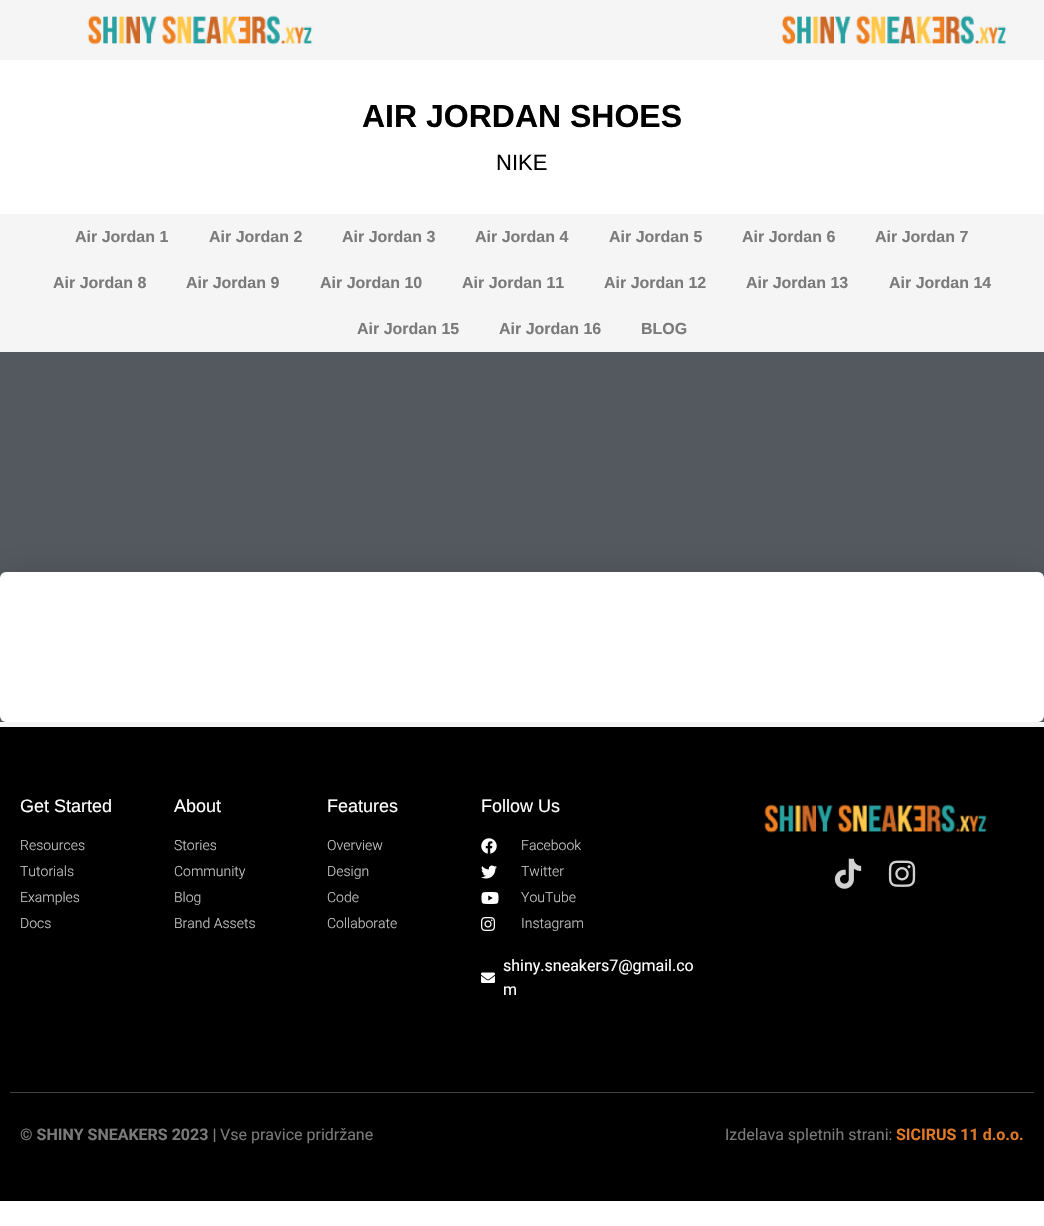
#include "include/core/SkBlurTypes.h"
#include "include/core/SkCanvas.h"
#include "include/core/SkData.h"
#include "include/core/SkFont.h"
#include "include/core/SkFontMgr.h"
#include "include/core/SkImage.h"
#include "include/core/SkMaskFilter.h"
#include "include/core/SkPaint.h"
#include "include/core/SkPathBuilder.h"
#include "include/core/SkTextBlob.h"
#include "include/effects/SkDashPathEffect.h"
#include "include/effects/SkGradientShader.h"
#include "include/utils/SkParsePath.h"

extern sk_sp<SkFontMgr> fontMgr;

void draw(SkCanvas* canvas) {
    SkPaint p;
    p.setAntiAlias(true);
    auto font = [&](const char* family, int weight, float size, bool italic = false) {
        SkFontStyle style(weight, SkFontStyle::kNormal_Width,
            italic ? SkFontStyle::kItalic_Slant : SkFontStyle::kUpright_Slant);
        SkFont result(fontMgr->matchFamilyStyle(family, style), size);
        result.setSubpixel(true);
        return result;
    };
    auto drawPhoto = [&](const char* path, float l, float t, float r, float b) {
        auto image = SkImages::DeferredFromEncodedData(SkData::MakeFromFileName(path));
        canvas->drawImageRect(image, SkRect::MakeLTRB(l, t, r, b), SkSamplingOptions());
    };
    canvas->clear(0xFFFFFFFF);
    p.setColor(0xFFF5F5F5);
    canvas->drawRect(SkRect::MakeLTRB(0, 0, 1044, 60), p);
    drawPhoto("media/1.png", 87, 15, 313, 45);
    drawPhoto("media/1.png", 781, 15, 1007, 45);
    auto font1 = font("Liberation Sans", 700, 32);
    p.setColor(0xFF000000);
    canvas->drawString("AIR JORDAN SHOES", 362, 127, font1, p);
    auto font2 = font("Liberation Sans", 400, 22);
    canvas->drawString("NIKE", 496, 170, font2, p);
    p.setColor(0xFFF5F5F5);
    canvas->drawRect(SkRect::MakeLTRB(0, 214, 1044, 352), p);
    auto font3 = font("Liberation Sans", 700, 16);
    p.setColor(0xFF7A7A7A);
    {
        const struct { const char* s; float x, y; } items[] = {
            {"Air Jordan 1", 75, 242},
            {"Air Jordan 2", 209, 242},
            {"Air Jordan 3", 342, 242},
            {"Air Jordan 4", 475, 242},
            {"Air Jordan 5", 609, 242},
            {"Air Jordan 6", 742, 242},
            {"Air Jordan 7", 875, 242},
            {"Air Jordan 8", 53, 288},
            {"Air Jordan 9", 186, 288},
            {"Air Jordan 10", 320, 288},
            {"Air Jordan 11", 462, 288},
            {"Air Jordan 12", 604, 288},
            {"Air Jordan 13", 746, 288},
            {"Air Jordan 14", 889, 288},
            {"Air Jordan 15", 357, 334},
            {"Air Jordan 16", 499, 334},
            {"BLOG", 641, 334},
        };
        for (auto [s, x, y] : items) {
            canvas->drawString(s, x, y, font3, p);
        }
    }
    p.setColor(0xFF54595F);
    canvas->drawRect(SkRect::MakeLTRB(0, 352, 1044, 722), p);
    p.setColor(0x21000000);
    p.setMaskFilter(SkMaskFilter::MakeBlur(kNormal_SkBlurStyle, 15));
    canvas->drawRoundRect(SkRect::MakeLTRB(0, 572, 1044, 722), 6, 6, p);
    p.setMaskFilter(nullptr);
    p.setColor(0xFFFFFFFF);
    canvas->drawRoundRect(SkRect::MakeLTRB(0, 572, 1044, 722), 6, 6, p);
    p.setColor(0xFF000000);
    canvas->drawRect(SkRect::MakeLTRB(0, 727, 1044, 1201), p);
    p.setColor(0xFFF5F5F5);
    canvas->drawRect(SkRect::MakeLTRB(0, 722, 1044, 727), p);
    auto font4 = font("Liberation Sans", 400, 18);
    p.setColor(0xFFFFFFFF);
    canvas->drawString("Get Started", 20, 812, font4, p);
    auto font5 = font("Roboto", 300, 14);
    p.setColor(0xFFC9C9C9);
    {
        const struct { const char* s; float x, y; } items[] = {
            {"Resources", 20, 850},
            {"Tutorials", 20, 876},
            {"Examples", 20, 902},
            {"Docs", 20, 928},
        };
        for (auto [s, x, y] : items) {
            canvas->drawString(s, x, y, font5, p);
        }
    }
    p.setColor(0xFFFFFFFF);
    canvas->drawString("About", 174, 812, font4, p);
    p.setColor(0xFFC9C9C9);
    {
        const struct { const char* s; float x, y; } items[] = {
            {"Stories", 174, 850},
            {"Community", 174, 876},
            {"Blog", 174, 902},
            {"Brand Assets", 174, 928},
        };
        for (auto [s, x, y] : items) {
            canvas->drawString(s, x, y, font5, p);
        }
    }
    p.setColor(0xFFFFFFFF);
    canvas->drawString("Features", 327, 812, font4, p);
    p.setColor(0xFFC9C9C9);
    {
        const struct { const char* s; float x, y; } items[] = {
            {"Overview", 327, 850},
            {"Design", 327, 876},
            {"Code", 327, 902},
            {"Collaborate", 327, 928},
        };
        for (auto [s, x, y] : items) {
            canvas->drawString(s, x, y, font5, p);
        }
    }
    p.setColor(0xFFFFFFFF);
    canvas->drawString("Follow Us", 481, 812, font4, p);
    drawPhoto("media/2.png", 481, 838, 497, 854);
    p.setColor(0xFFC9C9C9);
    canvas->drawString("Facebook", 521, 850, font5, p);
    drawPhoto("media/3.png", 481, 865, 497, 879);
    canvas->drawString("Twitter", 521, 876, font5, p);
    drawPhoto("media/4.png", 481, 892, 499, 904);
    canvas->drawString("YouTube", 521, 902, font5, p);
    drawPhoto("media/5.png", 481, 917, 495, 931);
    canvas->drawString("Instagram", 521, 928, font5, p);
    drawPhoto("media/6.png", 481, 972, 495, 983);
    auto font6 = font("Roboto", 400, 16);
    p.setColor(0xFFFFFFFF);
    canvas->drawString("shiny.sneakers7@gmail.co", 503, 971, font6, p);
    canvas->drawString("m", 503, 995, font6, p);
    drawPhoto("media/7.png", 764, 804, 987, 833);
    drawPhoto("media/8.png", 834, 858, 862, 889);
    drawPhoto("media/9.png", 888, 860, 916, 887);
    p.setColor(0xFF404040);
    canvas->drawRect(SkRect::MakeLTRB(10, 1092, 1034, 1093), p);
    auto font7 = font("Roboto", 700, 16);
    p.setColor(0xFF7A7A7A);
    canvas->drawString("© SHINY SNEAKERS 2023 |", 20, 1140, font7, p);
    canvas->drawString("Vse pravice pridržane", 220, 1140, font6, p);
    canvas->drawString("Izdelava spletnih strani:", 725, 1140, font6, p);
    p.setColor(0xFFDD7927);
    canvas->drawString("SICIRUS 11 d.o.o.", 896, 1140, font7, p);
}
